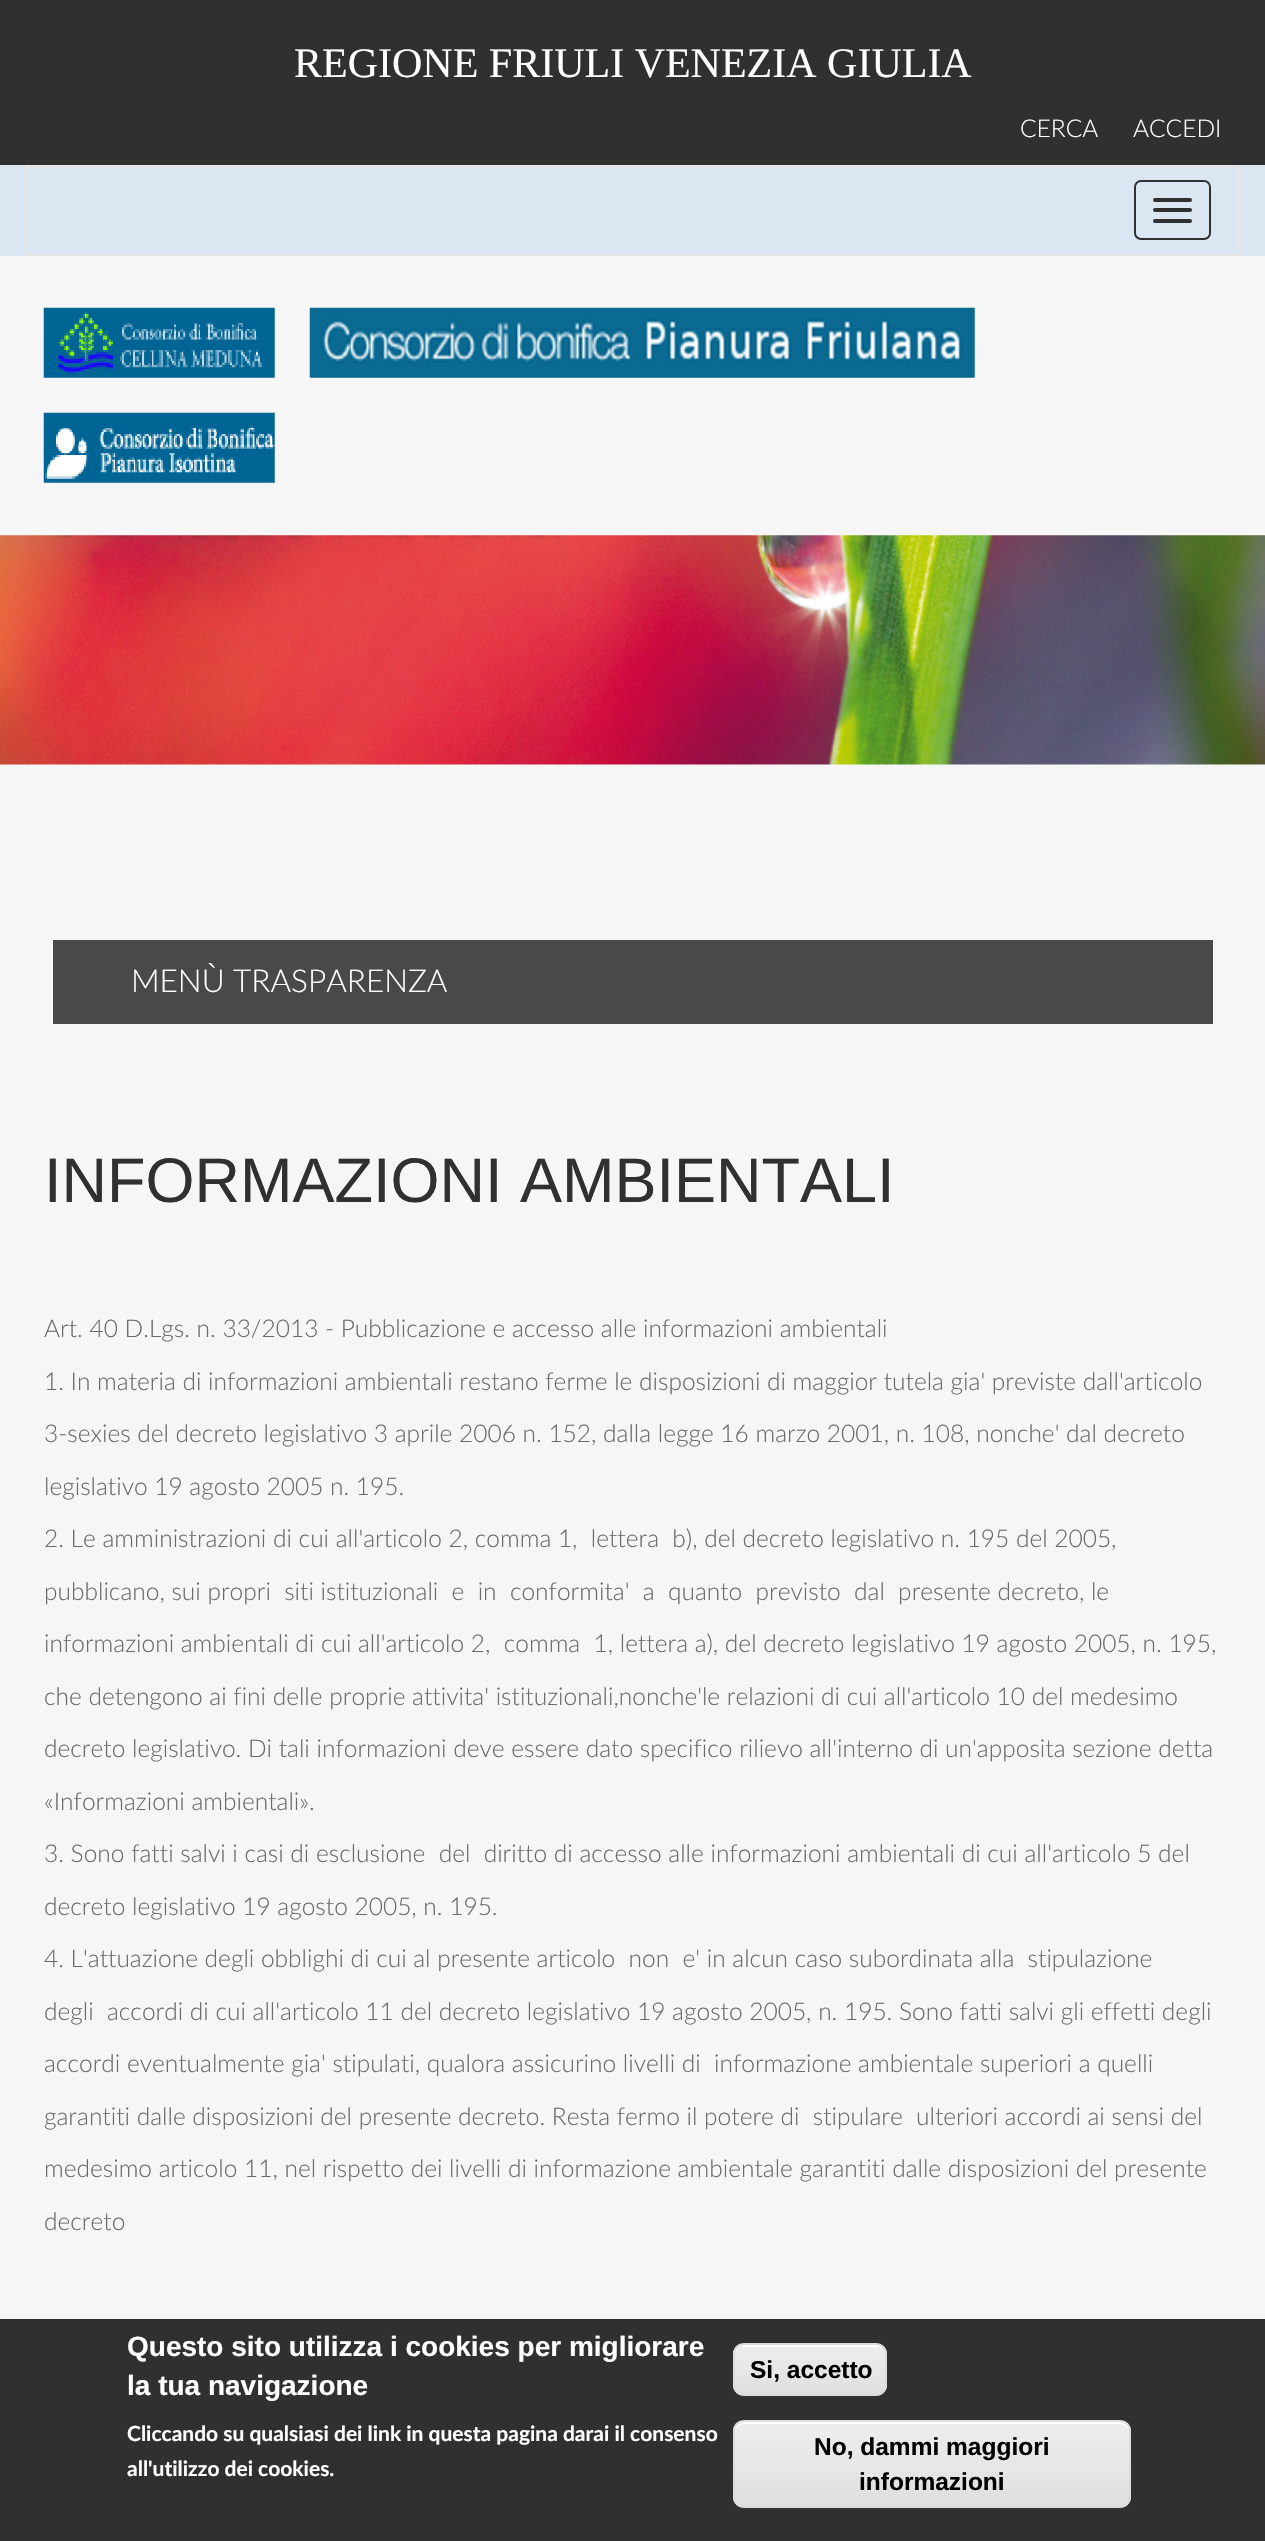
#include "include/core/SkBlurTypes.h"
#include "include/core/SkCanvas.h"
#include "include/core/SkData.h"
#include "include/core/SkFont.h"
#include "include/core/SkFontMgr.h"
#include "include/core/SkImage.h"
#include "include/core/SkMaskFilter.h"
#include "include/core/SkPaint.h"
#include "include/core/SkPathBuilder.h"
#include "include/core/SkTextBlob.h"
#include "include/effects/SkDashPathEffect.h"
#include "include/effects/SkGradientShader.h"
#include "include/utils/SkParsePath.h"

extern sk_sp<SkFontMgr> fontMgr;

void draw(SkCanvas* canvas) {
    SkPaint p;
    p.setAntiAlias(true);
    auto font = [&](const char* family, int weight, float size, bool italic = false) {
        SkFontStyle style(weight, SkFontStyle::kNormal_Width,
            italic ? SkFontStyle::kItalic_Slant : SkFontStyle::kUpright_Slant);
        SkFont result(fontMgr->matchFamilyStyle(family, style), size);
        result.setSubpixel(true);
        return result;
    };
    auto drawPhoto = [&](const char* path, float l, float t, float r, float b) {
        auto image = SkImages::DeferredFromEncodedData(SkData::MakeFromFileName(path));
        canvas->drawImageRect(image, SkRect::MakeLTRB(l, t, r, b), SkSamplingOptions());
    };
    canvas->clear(0xFFF6F6F6);
    p.setColor(0xFF303030);
    canvas->drawRect(SkRect::MakeLTRB(0, 0, 1265, 165), p);
    auto font1 = font("Liberation Serif", 400, 42);
    p.setColor(0xFFFFFFFF);
    canvas->drawString("REGIONE FRIULI VENEZIA GIULIA", 294, 77, font1, p);
    auto font2 = font("Lato", 300, 24.5f);
    canvas->drawString("CERCA", 1020, 137, font2, p);
    canvas->drawString("ACCEDI", 1133, 137, font2, p);
    p.setColor(0xFFDAE7F2);
    canvas->drawRect(SkRect::MakeLTRB(0, 165, 1265, 256), p);
    p.setStyle(SkPaint::kStroke_Style);
    p.setStrokeWidth(2);
    p.setColor(0xFFE7E7E7);
    canvas->drawRect(SkRect::MakeLTRB(27, 166, 1238, 255), p);
    p.setColor(0xFF303030);
    canvas->drawRoundRect(SkRect::MakeLTRB(1135, 181, 1210, 239), 6, 6, p);
    p.setStyle(SkPaint::kFill_Style);
    canvas->drawRoundRect(SkRect::MakeLTRB(1153, 198, 1192, 202), 2, 2, p);
    canvas->drawRoundRect(SkRect::MakeLTRB(1153, 208, 1192, 212), 2, 2, p);
    canvas->drawRoundRect(SkRect::MakeLTRB(1153, 219, 1192, 223), 2, 2, p);
    drawPhoto("media/1.png", 43, 307, 275, 378);
    drawPhoto("media/2.png", 309, 307, 975, 378);
    drawPhoto("media/3.png", 43, 412, 275, 483);
    drawPhoto("media/4.png", 0, 535, 1265, 765);
    p.setColor(0xFF494949);
    canvas->drawRect(SkRect::MakeLTRB(53, 940, 1213, 1024), p);
    auto font3 = font("Lato", 300, 31.5f);
    p.setColor(0xFFFFFFFF);
    canvas->drawString("MENÙ TRASPARENZA", 131, 992, font3, p);
    auto font4 = font("Liberation Sans", 400, 63);
    p.setColor(0xFF303030);
    canvas->drawString("INFORMAZIONI AMBIENTALI", 44, 1202, font4, p);
    p.setColor(0xFF6A6A6A);
    {
        const struct { const char* s; float x, y; } items[] = {
            {"Art. 40 D.Lgs. n. 33/2013 - Pubblicazione e accesso alle informazioni ambientali", 44, 1337},
            {"1. In materia di informazioni ambientali restano ferme le disposizioni di maggior tutela gia' previste dall'articolo", 44, 1390},
            {"3-sexies del decreto legislativo 3 aprile 2006 n. 152, dalla legge 16 marzo 2001, n. 108, nonche' dal decreto", 44, 1442},
            {"legislativo 19 agosto 2005 n. 195.", 44, 1495},
            {"2. Le amministrazioni di cui all'articolo 2, comma 1,  lettera  b), del decreto legislativo n. 195 del 2005,", 44, 1547},
            {"pubblicano, sui propri  siti istituzionali  e  in  conformita'  a  quanto  previsto  dal  presente decreto, le", 44, 1600},
            {"informazioni ambientali di cui all'articolo 2,  comma  1, lettera a), del decreto legislativo 19 agosto 2005, n. 195,", 44, 1652},
            {"che detengono ai fini delle proprie attivita' istituzionali,nonche'le relazioni di cui all'articolo 10 del medesimo", 44, 1705},
            {"decreto legislativo. Di tali informazioni deve essere dato specifico rilievo all'interno di un'apposita sezione detta", 44, 1757},
            {"«Informazioni ambientali».", 44, 1810},
            {"3. Sono fatti salvi i casi di esclusione  del  diritto di accesso alle informazioni ambientali di cui all'articolo 5 del", 44, 1862},
            {"decreto legislativo 19 agosto 2005, n. 195.", 44, 1915},
            {"4. L'attuazione degli obblighi di cui al presente articolo  non  e' in alcun caso subordinata alla  stipulazione", 44, 1967},
            {"degli  accordi di cui all'articolo 11 del decreto legislativo 19 agosto 2005, n. 195. Sono fatti salvi gli effetti degli", 44, 2020},
            {"accordi eventualmente gia' stipulati, qualora assicurino livelli di  informazione ambientale superiori a quelli", 44, 2072},
            {"garantiti dalle disposizioni del presente decreto. Resta fermo il potere di  stipulare  ulteriori accordi ai sensi del", 44, 2125},
            {"medesimo articolo 11, nel rispetto dei livelli di informazione ambientale garantiti dalle disposizioni del presente", 44, 2177},
            {"decreto", 44, 2230},
        };
        for (auto [s, x, y] : items) {
            canvas->drawString(s, x, y, font2, p);
        }
    }
    p.setColor(0xFF303030);
    canvas->drawRect(SkRect::MakeLTRB(0, 2319, 1265, 2541), p);
    auto font5 = font("Liberation Sans", 700, 28);
    p.setColor(0xFFFFFFFF);
    canvas->drawString("Questo sito utilizza i cookies per migliorare", 127, 2356, font5, p);
    canvas->drawString("la tua navigazione", 127, 2395, font5, p);
    auto font6 = font("Lato", 700, 21);
    canvas->drawString("Cliccando su qualsiasi dei link in questa pagina darai il consenso", 127, 2441, font6, p);
    canvas->drawString("all'utilizzo dei cookies.", 127, 2476, font6, p);
    canvas->save();
    canvas->clipPath(SkPathBuilder().moveTo(744, 2343).lineTo(876, 2343).cubicTo(882, 2343, 887, 2348, 887, 2354).lineTo(887, 2385).cubicTo(887, 2391, 882, 2396, 876, 2396).lineTo(744, 2396).cubicTo(738, 2396, 733, 2391, 733, 2385).lineTo(733, 2354).cubicTo(733, 2348, 738, 2343, 744, 2343).close().detach(), true);
    {
        const SkColor colors[] = {0xFFEDEDED, 0xFFDFDFDF};
        const float stops[] = {0.05f, 1};
        const SkPoint ends[] = {{810, 2345}, {810, 2394}};
        p.setShader(SkGradientShader::MakeLinear(ends, colors, stops, 2, SkTileMode::kClamp));
        p.setAlpha(255);
    }
    canvas->drawRect(SkRect::MakeLTRB(733, 2345, 887, 2394), p);
    canvas->restore();
    p.setShader(nullptr);
    p.setColor(0xFFFFFFFF);
    canvas->drawPath(SkPathBuilder().moveTo(744, 2347).lineTo(877, 2347).cubicTo(882, 2347, 886, 2351, 886, 2356).lineTo(886, 2354).cubicTo(886, 2349, 882, 2345, 877, 2345).lineTo(744, 2345).cubicTo(739, 2345, 735, 2349, 735, 2354).lineTo(735, 2356).cubicTo(735, 2351, 739, 2347, 744, 2347).close().detach(), p);
    p.setStyle(SkPaint::kStroke_Style);
    p.setColor(0xFFDCDCDC);
    canvas->drawRoundRect(SkRect::MakeLTRB(734, 2344, 886, 2395), 10, 10, p);
    auto font7 = font("Liberation Sans", 700, 24.5f);
    p.setStyle(SkPaint::kFill_Style);
    p.setColor(0xFF000000);
    canvas->drawString("Si, accetto", 750, 2378, font7, p);
    canvas->save();
    canvas->clipPath(SkPathBuilder().moveTo(744, 2420).lineTo(1120, 2420).cubicTo(1126, 2420, 1131, 2425, 1131, 2431).lineTo(1131, 2497).cubicTo(1131, 2503, 1126, 2508, 1120, 2508).lineTo(744, 2508).cubicTo(738, 2508, 733, 2503, 733, 2497).lineTo(733, 2431).cubicTo(733, 2425, 738, 2420, 744, 2420).close().detach(), true);
    {
        const SkColor colors[] = {0xFFEDEDED, 0xFFDFDFDF};
        const float stops[] = {0.05f, 1};
        const SkPoint ends[] = {{932, 2422}, {932, 2506}};
        p.setShader(SkGradientShader::MakeLinear(ends, colors, stops, 2, SkTileMode::kClamp));
        p.setAlpha(255);
    }
    canvas->drawRect(SkRect::MakeLTRB(733, 2422, 1131, 2506), p);
    canvas->restore();
    p.setShader(nullptr);
    p.setColor(0xFFFFFFFF);
    canvas->drawPath(SkPathBuilder().moveTo(744, 2424).lineTo(1120, 2424).cubicTo(1125, 2424, 1129, 2428, 1129, 2432).lineTo(1129, 2431).cubicTo(1129, 2426, 1125, 2422, 1120, 2422).lineTo(744, 2422).cubicTo(739, 2422, 735, 2426, 735, 2431).lineTo(735, 2432).cubicTo(735, 2428, 739, 2424, 744, 2424).close().detach(), p);
    p.setStyle(SkPaint::kStroke_Style);
    p.setColor(0xFFDCDCDC);
    canvas->drawRoundRect(SkRect::MakeLTRB(734, 2421, 1130, 2507), 10, 10, p);
    p.setStyle(SkPaint::kFill_Style);
    p.setColor(0xFF000000);
    canvas->drawString("No, dammi maggiori", 814, 2455, font7, p);
    canvas->drawString("informazioni", 859, 2490, font7, p);
}
